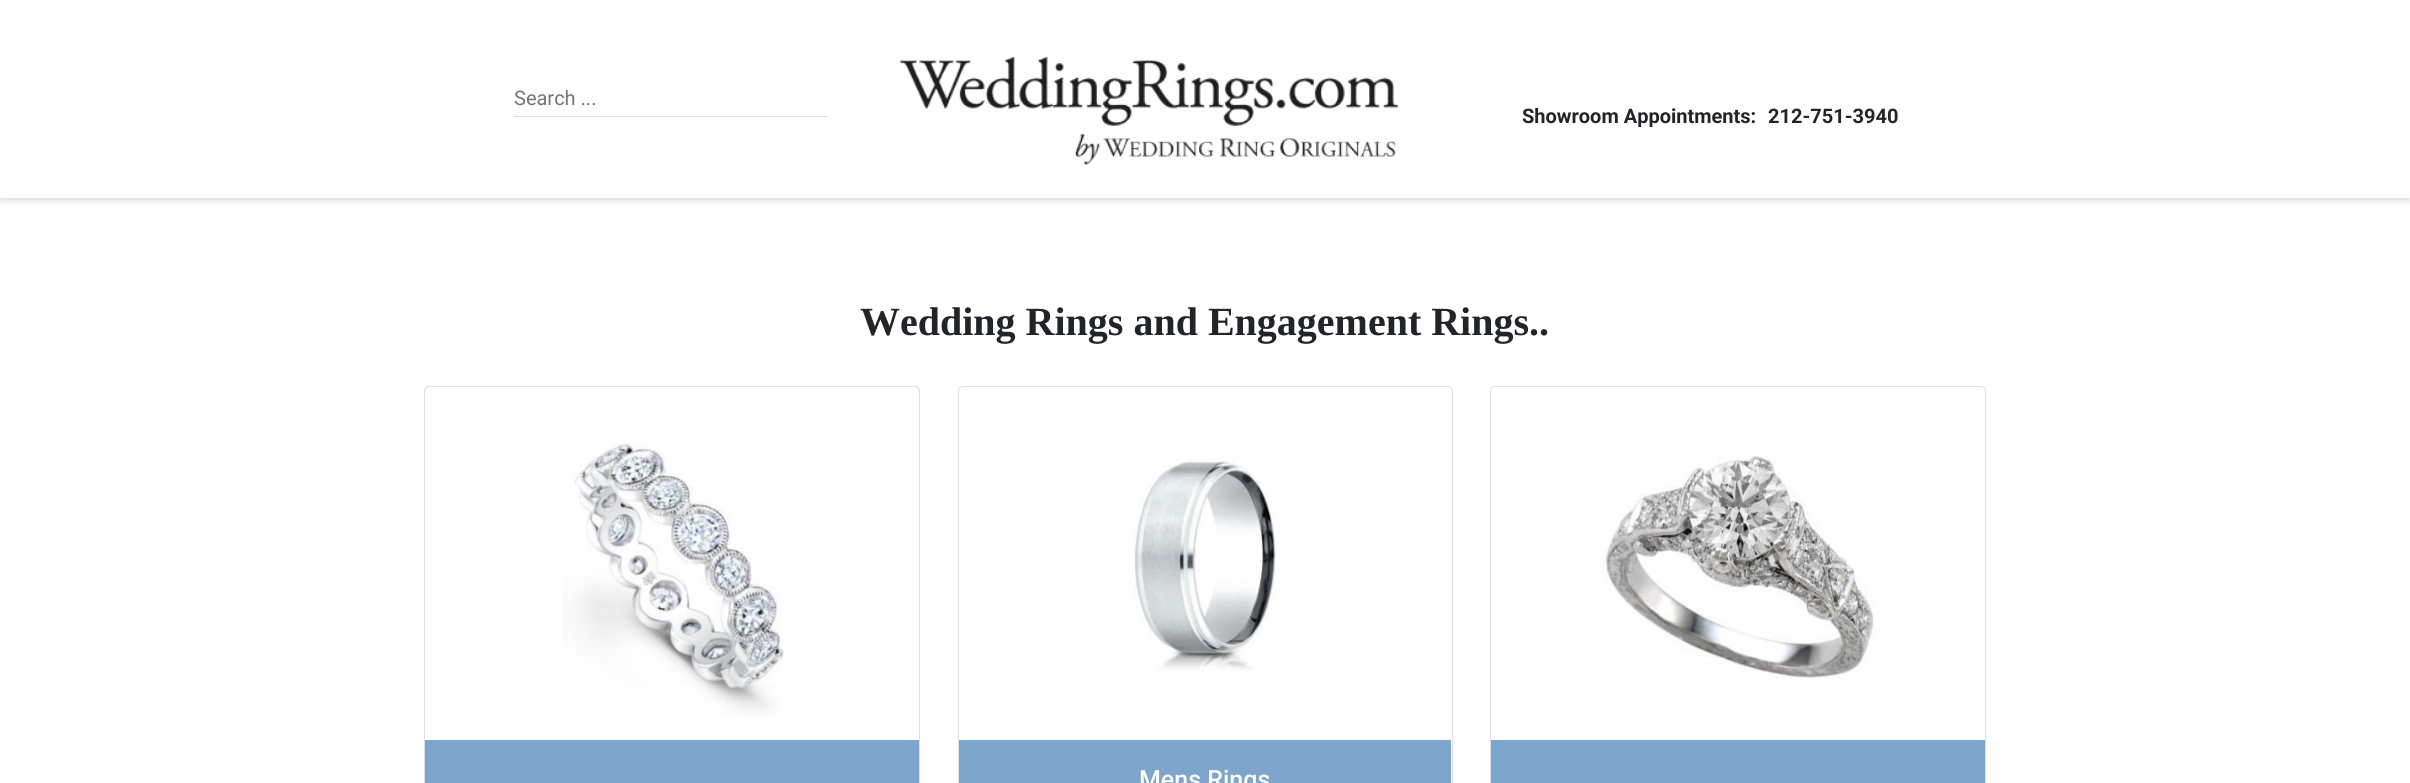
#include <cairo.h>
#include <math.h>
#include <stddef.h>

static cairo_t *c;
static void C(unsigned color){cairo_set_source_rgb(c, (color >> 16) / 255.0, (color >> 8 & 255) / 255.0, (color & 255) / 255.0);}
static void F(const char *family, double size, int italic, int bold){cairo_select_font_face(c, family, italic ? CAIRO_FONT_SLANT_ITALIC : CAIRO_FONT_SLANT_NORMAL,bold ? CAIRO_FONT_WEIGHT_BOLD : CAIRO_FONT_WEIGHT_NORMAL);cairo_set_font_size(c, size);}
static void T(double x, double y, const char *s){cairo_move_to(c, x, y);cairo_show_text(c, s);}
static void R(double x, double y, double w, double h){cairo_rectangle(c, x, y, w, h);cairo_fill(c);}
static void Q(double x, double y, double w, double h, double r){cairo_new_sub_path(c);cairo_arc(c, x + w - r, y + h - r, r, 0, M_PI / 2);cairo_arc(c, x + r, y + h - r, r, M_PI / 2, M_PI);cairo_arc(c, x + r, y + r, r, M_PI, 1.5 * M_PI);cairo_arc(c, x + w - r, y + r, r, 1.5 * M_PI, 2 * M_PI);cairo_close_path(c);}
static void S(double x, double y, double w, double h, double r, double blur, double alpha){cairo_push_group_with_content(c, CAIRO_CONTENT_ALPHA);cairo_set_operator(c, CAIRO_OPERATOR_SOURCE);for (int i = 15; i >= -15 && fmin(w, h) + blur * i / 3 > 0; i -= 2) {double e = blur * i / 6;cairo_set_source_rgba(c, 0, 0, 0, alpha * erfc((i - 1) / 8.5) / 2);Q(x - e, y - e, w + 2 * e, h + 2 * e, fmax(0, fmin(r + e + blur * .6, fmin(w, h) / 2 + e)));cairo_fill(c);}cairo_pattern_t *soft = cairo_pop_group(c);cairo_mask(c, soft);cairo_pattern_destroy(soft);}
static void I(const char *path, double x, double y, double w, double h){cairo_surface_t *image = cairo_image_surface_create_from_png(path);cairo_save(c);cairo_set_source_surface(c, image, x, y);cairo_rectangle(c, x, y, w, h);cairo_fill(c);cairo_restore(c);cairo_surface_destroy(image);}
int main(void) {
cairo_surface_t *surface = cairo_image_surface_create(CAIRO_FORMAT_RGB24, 2410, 783);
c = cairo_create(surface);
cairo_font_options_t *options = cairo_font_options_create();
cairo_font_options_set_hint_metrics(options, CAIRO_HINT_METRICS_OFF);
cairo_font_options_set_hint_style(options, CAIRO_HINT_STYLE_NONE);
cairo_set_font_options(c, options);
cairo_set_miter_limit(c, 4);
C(0xffffff);
cairo_paint(c);
cairo_save(c);
cairo_set_fill_rule(c,CAIRO_FILL_RULE_EVEN_ODD);
cairo_new_path(c);
cairo_move_to(c,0,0);
cairo_line_to(c,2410,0);
cairo_line_to(c,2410,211);
cairo_line_to(c,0,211);
cairo_close_path(c);
cairo_move_to(c,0,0);
cairo_line_to(c,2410,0);
cairo_line_to(c,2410,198);
cairo_line_to(c,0,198);
cairo_close_path(c);
cairo_clip(c);
C(0xdedede);
S(0,4,2410,197,0,3,1);
cairo_restore(c);
C(0xdedede);
R(514,116,314,1);
F("Roboto",20,0,0);
C(0x757575);
T(514,105,"Search ...");
I("1.png",899,56,500,110);
F("Roboto",20,0,1);
C(0x212529);
T(1522,123,"Showroom Appointments:");
T(1768,123,"212-751-3940");
F("Liberation Serif",40,0,1);
T(860,335,"Wedding Rings and Engagement Rings..");
Q(424.5,386.5,495,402,4.5);
C(0xdfdfdf);
cairo_set_line_width(c,1);
cairo_stroke(c);
I("2.png",562,443,222,273);
C(0x7ea5cc);
R(425,740,494,43);
Q(958.5,386.5,494,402,4.5);
C(0xdfdfdf);
cairo_stroke(c);
I("3.png",1134,459,142,212);
C(0x7ea5cc);
R(959,740,492,43);
F("Roboto Medium",25,0,0);
C(0xffffff);
T(1139,788,"Mens Rings");
Q(1490.5,386.5,495,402,4.5);
C(0xdfdfdf);
cairo_stroke(c);
I("4.png",1604,456,271,223);
C(0x7ea5cc);
R(1491,740,494,43);
cairo_surface_write_to_png(surface, "o.png");
cairo_font_options_destroy(options);
cairo_destroy(c);
cairo_surface_destroy(surface);
return 0;
}
